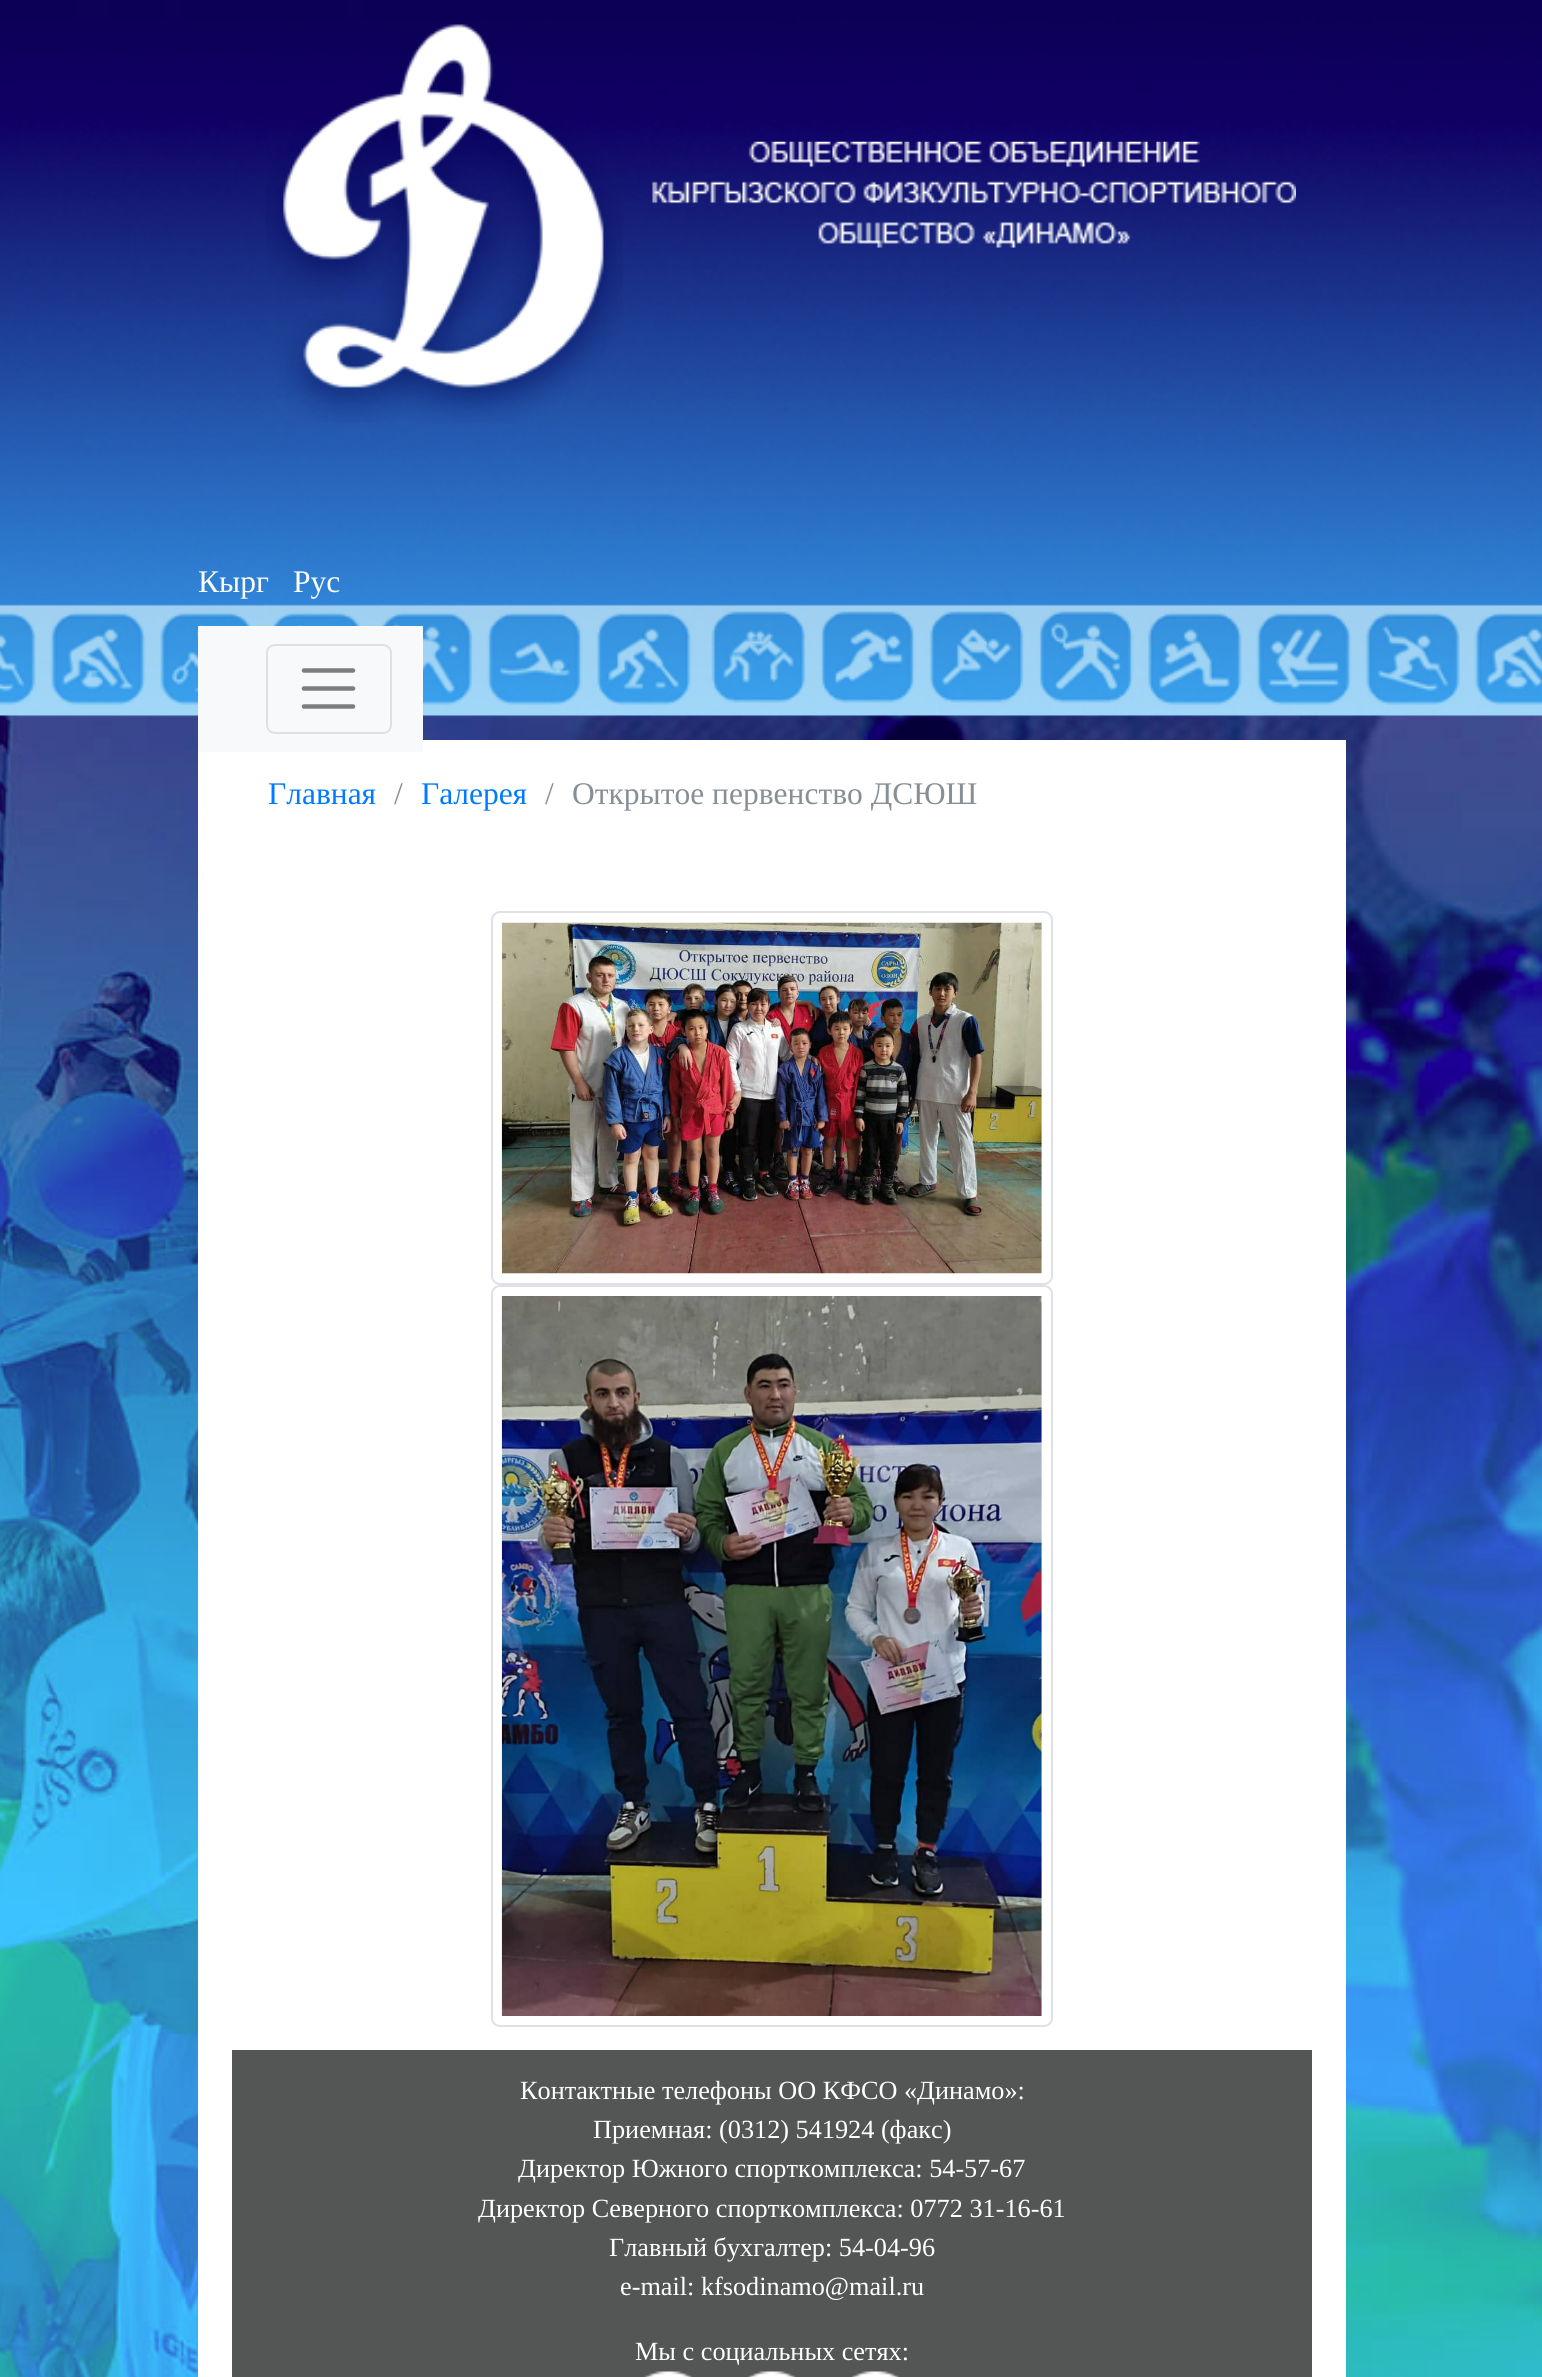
#include <cairo.h>
#include <math.h>
#include <stddef.h>

static cairo_t *c;
static void C(unsigned color){cairo_set_source_rgb(c, (color >> 16) / 255.0, (color >> 8 & 255) / 255.0, (color & 255) / 255.0);}
static void F(const char *family, double size, int italic, int bold){cairo_select_font_face(c, family, italic ? CAIRO_FONT_SLANT_ITALIC : CAIRO_FONT_SLANT_NORMAL,bold ? CAIRO_FONT_WEIGHT_BOLD : CAIRO_FONT_WEIGHT_NORMAL);cairo_set_font_size(c, size);}
static void T(double x, double y, const char *s){cairo_move_to(c, x, y);cairo_show_text(c, s);}
static void R(double x, double y, double w, double h){cairo_rectangle(c, x, y, w, h);cairo_fill(c);}
static void Q(double x, double y, double w, double h, double r){cairo_new_sub_path(c);cairo_arc(c, x + w - r, y + h - r, r, 0, M_PI / 2);cairo_arc(c, x + r, y + h - r, r, M_PI / 2, M_PI);cairo_arc(c, x + r, y + r, r, M_PI, 1.5 * M_PI);cairo_arc(c, x + w - r, y + r, r, 1.5 * M_PI, 2 * M_PI);cairo_close_path(c);}
static void I(const char *path, double x, double y, double w, double h){cairo_surface_t *image = cairo_image_surface_create_from_png(path);cairo_save(c);cairo_set_source_surface(c, image, x, y);cairo_rectangle(c, x, y, w, h);cairo_fill(c);cairo_restore(c);cairo_surface_destroy(image);}
int main(void) {
cairo_surface_t *surface = cairo_image_surface_create(CAIRO_FORMAT_RGB24, 1542, 2377);
c = cairo_create(surface);
cairo_font_options_t *options = cairo_font_options_create();
cairo_font_options_set_hint_metrics(options, CAIRO_HINT_METRICS_OFF);
cairo_font_options_set_hint_style(options, CAIRO_HINT_STYLE_NONE);
cairo_set_font_options(c, options);
cairo_set_miter_limit(c, 4);
C(0xffffff);
cairo_paint(c);
I("1.png",0,0,1542,2377);
I("2.png",266,24,357,399);
I("3.png",652,141,644,107);
F("Liberation Serif",31.5,0,0);
C(0xffffff);
T(198,592,"Кырг");
T(293,592,"Рус");
R(198,740,1148,1637);
C(0xf8f9fa);
R(198,626,225,126);
Q(267,645,124,88,8);
C(0xdfe0e1);
cairo_stroke(c);
cairo_new_path(c);
cairo_move_to(c,304,670.5);
cairo_line_to(c,353,670.5);
cairo_move_to(c,304,688.5);
cairo_line_to(c,353,688.5);
cairo_move_to(c,304,706.5);
cairo_line_to(c,353,706.5);
C(0x7c7d7d);
cairo_set_line_width(c,4.5);
cairo_set_line_cap(c,CAIRO_LINE_CAP_ROUND);
cairo_stroke(c);
C(0x007bff);
T(268,804,"Главная");
C(0x868e96);
T(394,804,"/");
C(0x007bff);
T(421,804,"Галерея");
C(0x868e96);
T(545,804,"/");
T(572,804,"Открытое первенство ДСЮШ");
Q(492,912,560,372,8);
C(0xdee2e6);
cairo_set_line_width(c,2);
cairo_set_line_cap(c,CAIRO_LINE_CAP_BUTT);
cairo_stroke(c);
I("4.png",501,922,541,352);
Q(492,1286,560,740,8);
cairo_stroke(c);
I("5.png",501,1296,541,720);
C(0x545555);
R(232,2050,1080,327);
F("Liberation Serif",26.25,0,0);
C(0xffffff);
T(520,2099,"Контактные телефоны ОО КФСО «Динамо»:");
T(593,2138,"Приемная: (0312) 541924 (факс)");
T(518,2177,"Директор Южного спорткомплекса: 54-57-67");
T(478,2217,"Директор Северного спорткомплекса: 0772 31-16-61");
T(609,2256,"Главный бухгалтер: 54-04-96");
T(620,2295,"e-mail: kfsodinamo@mail.ru");
T(635,2360,"Мы с социальных сетях:");
I("6.png",643,2371,50,6);
I("7.png",747,2371,50,6);
I("8.png",851,2371,49,6);
cairo_surface_write_to_png(surface, "o.png");
cairo_font_options_destroy(options);
cairo_destroy(c);
cairo_surface_destroy(surface);
return 0;
}
